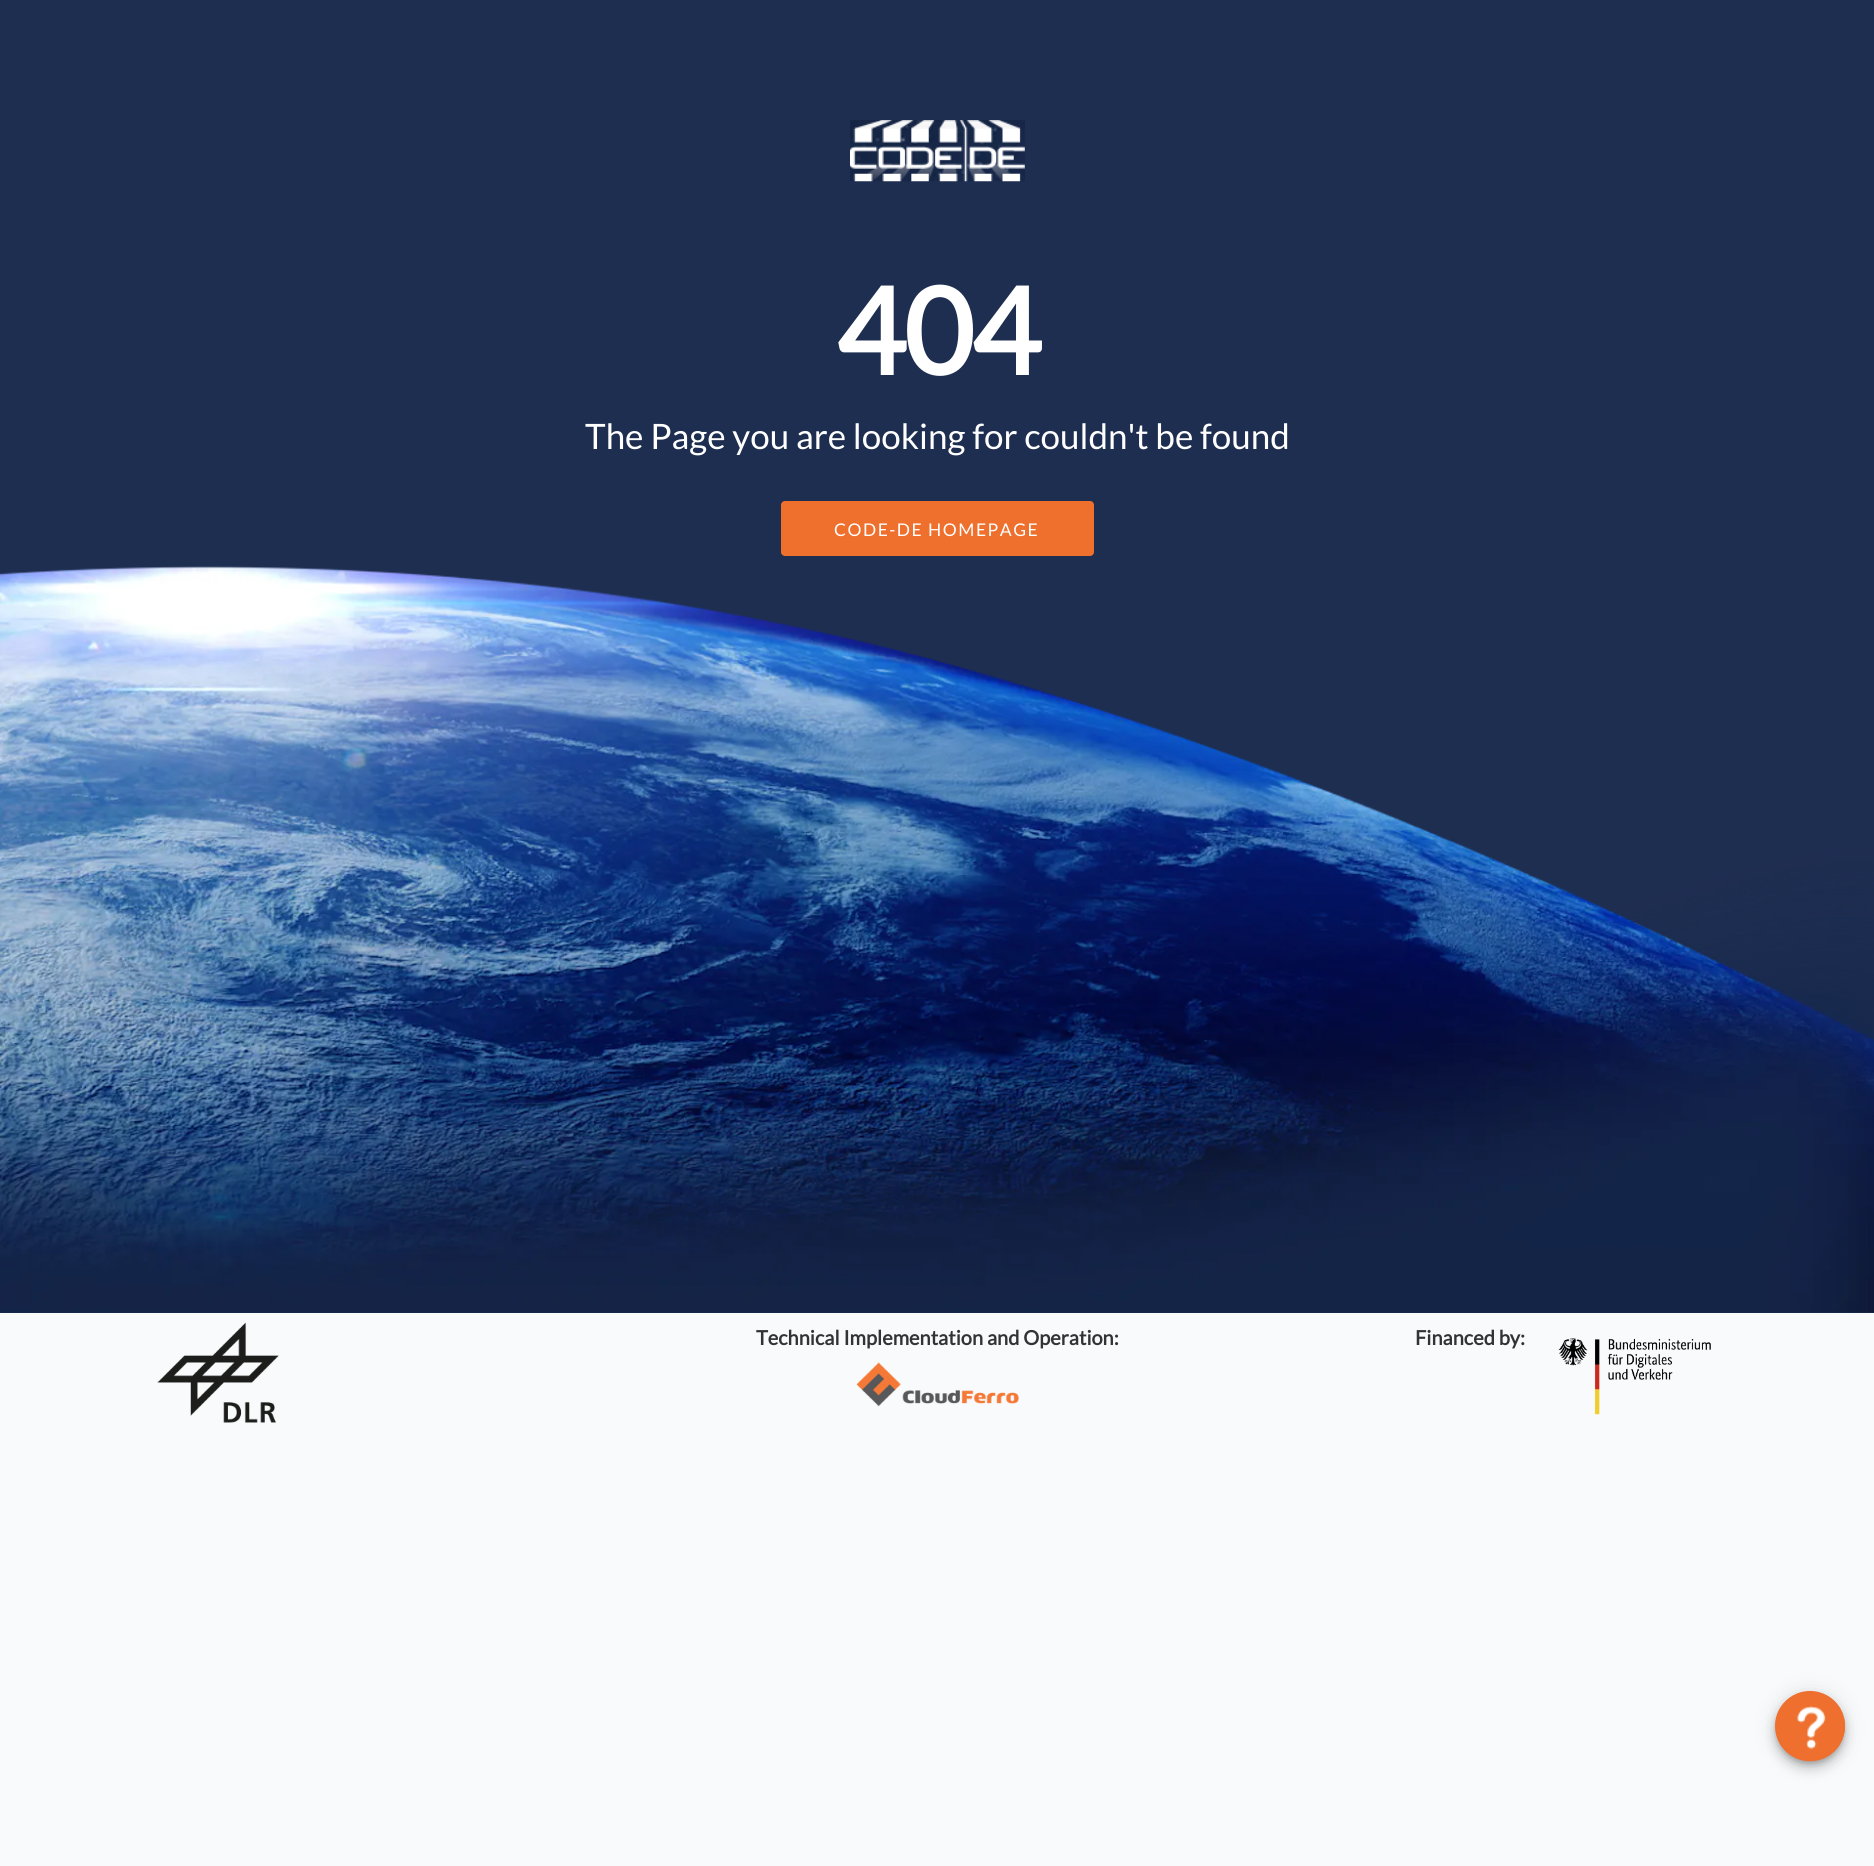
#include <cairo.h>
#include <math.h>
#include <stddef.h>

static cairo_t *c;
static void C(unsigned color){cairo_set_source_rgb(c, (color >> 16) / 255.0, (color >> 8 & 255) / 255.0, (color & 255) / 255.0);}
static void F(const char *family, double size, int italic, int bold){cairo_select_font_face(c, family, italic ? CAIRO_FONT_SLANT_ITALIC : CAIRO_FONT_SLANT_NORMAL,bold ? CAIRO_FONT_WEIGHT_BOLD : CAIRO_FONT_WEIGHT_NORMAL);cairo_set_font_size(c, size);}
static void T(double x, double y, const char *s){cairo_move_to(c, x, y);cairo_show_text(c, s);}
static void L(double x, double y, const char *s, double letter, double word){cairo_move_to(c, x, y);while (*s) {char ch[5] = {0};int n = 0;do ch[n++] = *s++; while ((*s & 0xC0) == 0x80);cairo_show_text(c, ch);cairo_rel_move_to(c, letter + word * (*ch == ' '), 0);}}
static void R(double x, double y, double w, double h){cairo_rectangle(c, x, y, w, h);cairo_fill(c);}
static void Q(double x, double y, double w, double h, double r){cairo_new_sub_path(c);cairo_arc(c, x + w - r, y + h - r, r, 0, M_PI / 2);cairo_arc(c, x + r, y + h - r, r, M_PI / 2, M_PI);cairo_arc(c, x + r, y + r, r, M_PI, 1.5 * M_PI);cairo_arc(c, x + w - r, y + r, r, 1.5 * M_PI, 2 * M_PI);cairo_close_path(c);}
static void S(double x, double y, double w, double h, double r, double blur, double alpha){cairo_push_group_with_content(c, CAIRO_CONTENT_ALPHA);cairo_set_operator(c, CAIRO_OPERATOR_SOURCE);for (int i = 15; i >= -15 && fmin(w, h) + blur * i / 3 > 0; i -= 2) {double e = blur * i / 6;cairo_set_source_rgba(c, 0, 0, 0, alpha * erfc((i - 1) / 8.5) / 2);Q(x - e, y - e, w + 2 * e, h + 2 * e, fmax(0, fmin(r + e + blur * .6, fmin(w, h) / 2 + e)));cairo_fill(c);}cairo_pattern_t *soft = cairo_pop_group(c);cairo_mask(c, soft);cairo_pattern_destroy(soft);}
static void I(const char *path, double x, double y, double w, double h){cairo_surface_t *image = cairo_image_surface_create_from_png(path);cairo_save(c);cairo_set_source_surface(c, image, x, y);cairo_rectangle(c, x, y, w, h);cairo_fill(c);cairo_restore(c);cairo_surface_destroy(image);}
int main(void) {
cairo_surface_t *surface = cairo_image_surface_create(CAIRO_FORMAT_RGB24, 1874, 1866);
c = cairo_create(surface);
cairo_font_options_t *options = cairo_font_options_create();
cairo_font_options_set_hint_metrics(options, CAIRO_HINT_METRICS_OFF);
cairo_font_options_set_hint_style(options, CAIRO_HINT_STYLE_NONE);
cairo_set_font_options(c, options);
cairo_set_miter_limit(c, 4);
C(0xf8fafb);
cairo_paint(c);
C(0x1e2e51);
R(0,0,1874,1313);
I("1.png",850,120,175,62);
F("Lato",120,0,1);
C(0xffffff);
L(836,375,"404",-2,0);
F("Lato",35,0,0);
T(585,449,"The Page you are looking for couldn't be found");
C(0xef6f2d);
Q(781,501,313,55,4);
cairo_fill(c);
F("Lato",17.5,0,0);
C(0xffffff);
L(834,536,"CODE-DE HOMEPAGE",1.5,0);
I("2.png",0,566,1874,747);
I("3.png",157,1322,122,101);
F("Lato",20,0,1);
C(0x333333);
T(756,1345,"Technical Implementation and Operation:");
I("4.png",856,1362,163,45);
T(1415,1345,"Financed by:");
I("5.png",1558,1338,153,77);
C(0x000000);
S(1775,1693,70,70,35,11,.12);
S(1775,1699,70,70,35,6,.14);
S(1776,1696,68,68,34,3,.2);
C(0xef6f2d);
cairo_arc(c,1810,1726,35,0,2 * M_PI);
cairo_fill(c);
I("6.png",1776,1691,69,71);
cairo_surface_write_to_png(surface, "o.png");
cairo_font_options_destroy(options);
cairo_destroy(c);
cairo_surface_destroy(surface);
return 0;
}
